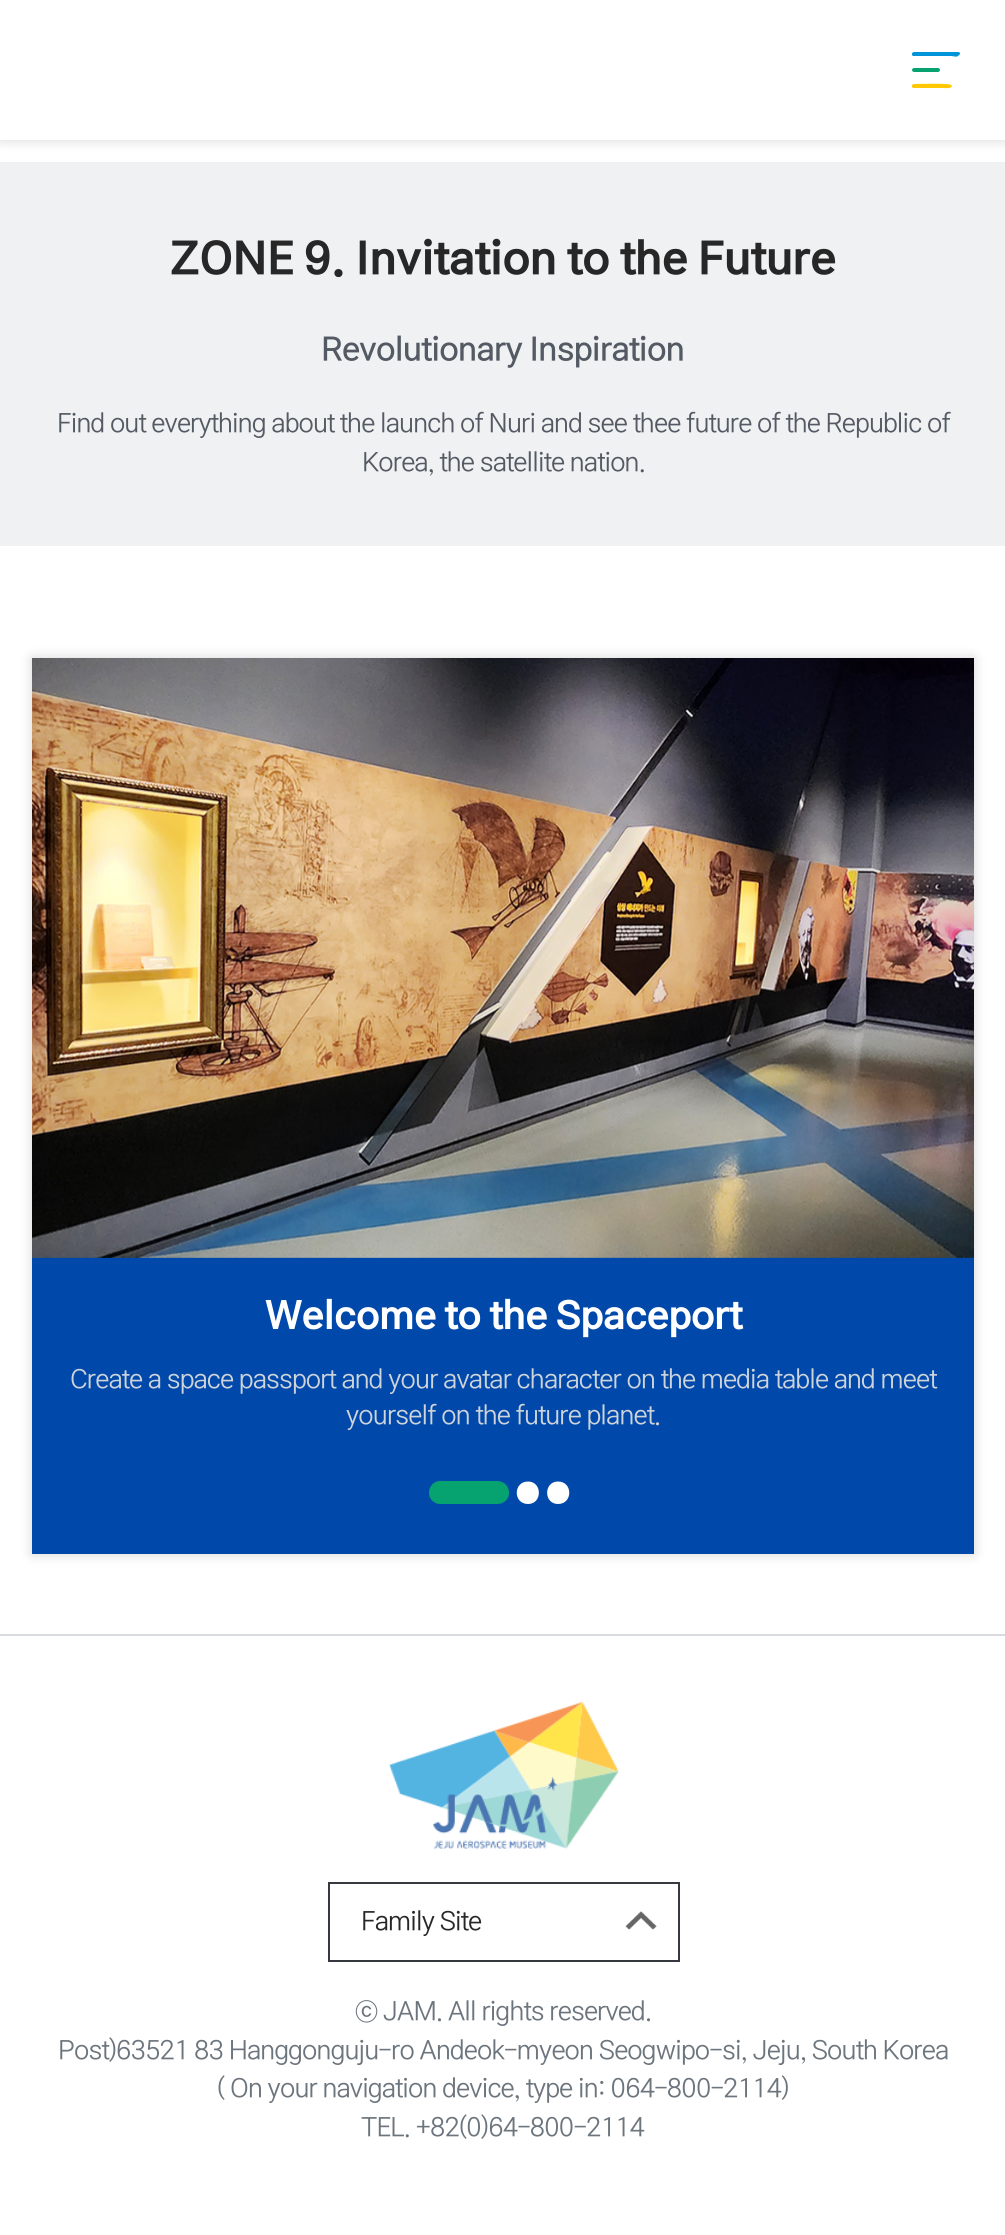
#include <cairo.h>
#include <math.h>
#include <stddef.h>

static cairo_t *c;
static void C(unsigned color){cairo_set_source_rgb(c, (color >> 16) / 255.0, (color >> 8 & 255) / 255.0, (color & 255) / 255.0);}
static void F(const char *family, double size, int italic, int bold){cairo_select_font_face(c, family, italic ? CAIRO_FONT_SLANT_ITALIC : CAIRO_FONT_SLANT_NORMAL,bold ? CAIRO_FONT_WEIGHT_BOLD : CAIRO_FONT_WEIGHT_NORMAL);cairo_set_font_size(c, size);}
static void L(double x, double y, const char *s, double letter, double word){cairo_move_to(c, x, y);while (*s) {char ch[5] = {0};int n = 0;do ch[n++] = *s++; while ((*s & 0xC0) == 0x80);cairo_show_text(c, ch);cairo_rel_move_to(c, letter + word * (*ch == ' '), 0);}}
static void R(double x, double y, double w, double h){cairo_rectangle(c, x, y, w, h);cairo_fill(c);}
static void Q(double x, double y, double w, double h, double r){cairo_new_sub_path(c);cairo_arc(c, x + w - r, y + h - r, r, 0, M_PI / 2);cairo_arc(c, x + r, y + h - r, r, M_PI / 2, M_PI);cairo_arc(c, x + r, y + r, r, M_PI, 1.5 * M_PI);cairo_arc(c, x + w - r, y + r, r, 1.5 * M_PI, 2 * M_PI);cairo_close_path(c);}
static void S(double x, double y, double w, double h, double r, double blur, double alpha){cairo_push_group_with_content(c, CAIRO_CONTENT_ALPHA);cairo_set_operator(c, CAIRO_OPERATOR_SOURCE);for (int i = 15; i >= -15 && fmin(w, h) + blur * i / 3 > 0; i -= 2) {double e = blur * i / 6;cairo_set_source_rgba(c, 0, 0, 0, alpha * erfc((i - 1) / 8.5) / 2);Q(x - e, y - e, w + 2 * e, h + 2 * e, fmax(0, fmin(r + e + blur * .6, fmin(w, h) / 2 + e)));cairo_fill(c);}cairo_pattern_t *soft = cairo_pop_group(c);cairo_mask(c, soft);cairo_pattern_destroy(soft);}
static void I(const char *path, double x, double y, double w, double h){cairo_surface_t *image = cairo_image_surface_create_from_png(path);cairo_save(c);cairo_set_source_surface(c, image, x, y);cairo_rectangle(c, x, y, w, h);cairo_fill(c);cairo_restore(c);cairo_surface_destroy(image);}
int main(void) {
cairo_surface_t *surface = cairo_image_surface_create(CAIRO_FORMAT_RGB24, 1005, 2235);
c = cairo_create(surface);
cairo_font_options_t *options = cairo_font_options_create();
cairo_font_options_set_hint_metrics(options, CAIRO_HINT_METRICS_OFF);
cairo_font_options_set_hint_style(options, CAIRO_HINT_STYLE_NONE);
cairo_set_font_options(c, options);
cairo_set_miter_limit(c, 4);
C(0xffffff);
cairo_paint(c);
C(0x000000);
S(0,0,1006,140,0,6.5,.16);
C(0xffffff);
R(0,0,1005,140);
C(0x0094db);
cairo_new_path(c);
cairo_move_to(c,914,52);
cairo_line_to(c,958,52);
cairo_curve_to(c,960,52,961,54,959,55);
cairo_curve_to(c,957,58,954,56,951,56);
cairo_line_to(c,913,56);
cairo_curve_to(c,911,55,912,52,914,52);
cairo_close_path(c);
cairo_fill(c);
C(0x06a270);
cairo_new_path(c);
cairo_move_to(c,914,68);
cairo_line_to(c,938,68);
cairo_curve_to(c,939,68,940,69,940,70);
cairo_curve_to(c,940,71,939,72,938,72);
cairo_line_to(c,914,72);
cairo_curve_to(c,913,72,912,71,912,70);
cairo_curve_to(c,912,69,913,68,914,68);
cairo_close_path(c);
cairo_fill(c);
C(0xffc800);
cairo_new_path(c);
cairo_move_to(c,914,84);
cairo_curve_to(c,918,84,950,83,951,85);
cairo_line_to(c,952,86);
cairo_curve_to(c,951,89,945,88,944,88);
cairo_line_to(c,913,88);
cairo_curve_to(c,911,87,912,84,914,84);
cairo_close_path(c);
cairo_fill(c);
C(0xeff1f3);
R(0,162,1005,384);
F("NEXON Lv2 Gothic",44.75,0,1);
C(0x272727);
L(170,272,"ZONE 9. Invitation to the Future",-.8,0);
F("NEXON Lv2 Gothic Medium",32,0,0);
C(0x545a63);
L(321,359,"Revolutionary Inspiration",-.8,0);
F("NEXON Lv2 Gothic",25.6,0,0);
L(57,431,"Find out everything about the launch of Nuri and see thee future of the Republic of",-.8,0);
L(362,470,"Korea, the satellite nation.",-.8,0);
C(0x000000);
S(32,658,942,896,0,6.5,.16);
C(0x0049ab);
R(32,1257,942,297);
I("1.png",32,658,942,600);
F("NEXON Lv2 Gothic",38.4,0,1);
C(0xffffff);
L(265,1327,"Welcome to the Spaceport",-.8,0);
F("NEXON Lv2 Gothic",25.6,0,0);
C(0xced4da);
L(70,1387,"Create a space passport and your avatar character on the media table and meet",-.8,0);
L(346,1423,"yourself on the future planet.",-.8,0);
C(0x06a270);
cairo_new_path(c);
cairo_move_to(c,440,1481);
cairo_line_to(c,497,1481);
cairo_curve_to(c,504,1481,509,1486,509,1493);
cairo_curve_to(c,509,1499,504,1504,497,1504);
cairo_line_to(c,440,1504);
cairo_curve_to(c,434,1504,429,1499,429,1493);
cairo_curve_to(c,429,1486,434,1481,440,1481);
cairo_close_path(c);
cairo_fill(c);
C(0xffffff);
cairo_new_path(c);
cairo_move_to(c,528,1481.5);
cairo_curve_to(c,542.5,1481.5,542.5,1504,528,1504);
cairo_curve_to(c,513,1504,513,1481.5,528,1481.5);
cairo_close_path(c);
cairo_move_to(c,558,1481.5);
cairo_curve_to(c,573,1481.5,573,1504,558,1504);
cairo_curve_to(c,543.5,1504,543.5,1481.5,558,1481.5);
cairo_close_path(c);
cairo_fill(c);
C(0xd8dbdf);
R(0,1634,1005,2);
I("2.png",389,1701,230,148);
cairo_rectangle(c,329,1883,350,78);
C(0x363a40);
cairo_stroke(c);
C(0x272727);
L(361,1929,"Family Site",-.8,0);
I("3.png",625,1911,32,19);
C(0x6c757d);
L(355,2019,"ⓒ JAM. All rights reserved.",-.8,0);
L(58,2058,"Post)63521 83 Hanggonguju-ro Andeok-myeon Seogwipo-si, Jeju, South Korea",-.8,0);
L(217,2096,"( On your navigation device, type in: 064-800-2114)",-.8,0);
L(361,2135,"TEL. +82(0)64-800-2114",-.8,0);
cairo_surface_write_to_png(surface, "o.png");
cairo_font_options_destroy(options);
cairo_destroy(c);
cairo_surface_destroy(surface);
return 0;
}
